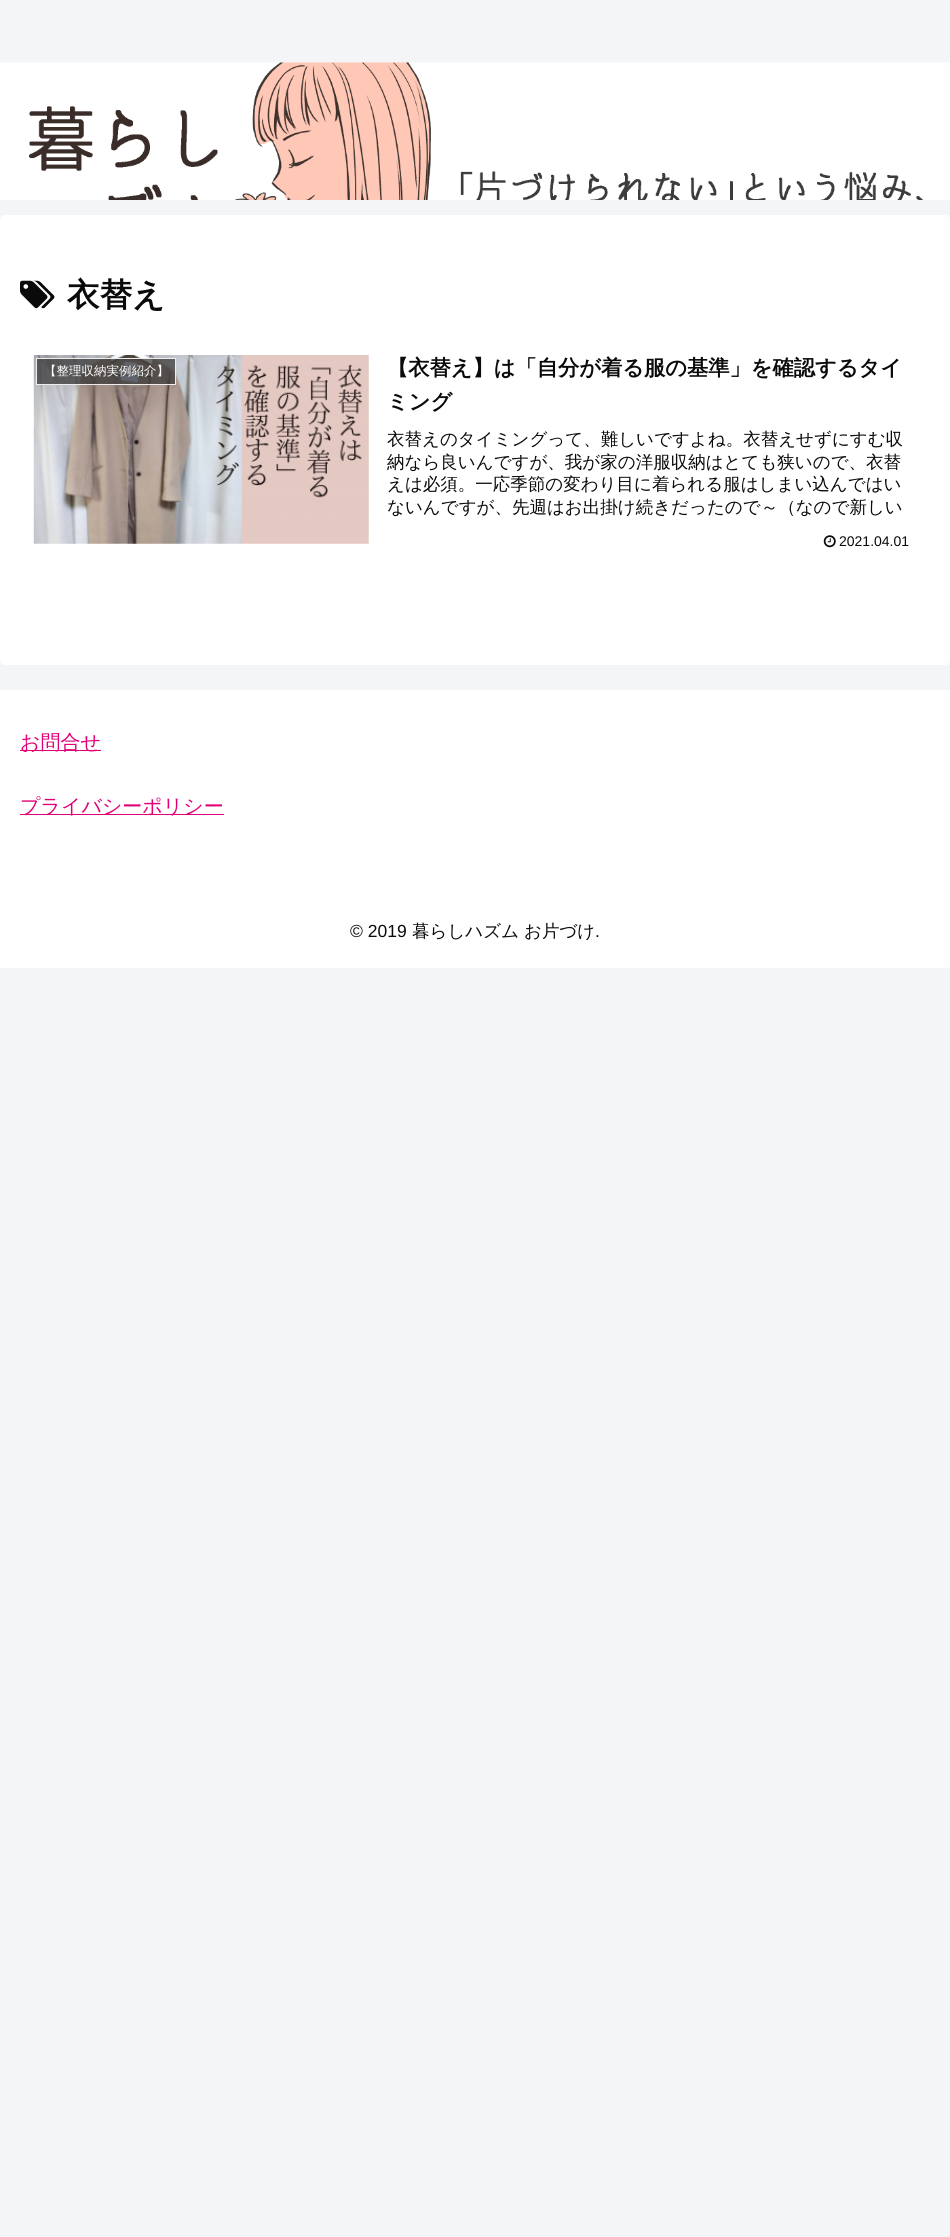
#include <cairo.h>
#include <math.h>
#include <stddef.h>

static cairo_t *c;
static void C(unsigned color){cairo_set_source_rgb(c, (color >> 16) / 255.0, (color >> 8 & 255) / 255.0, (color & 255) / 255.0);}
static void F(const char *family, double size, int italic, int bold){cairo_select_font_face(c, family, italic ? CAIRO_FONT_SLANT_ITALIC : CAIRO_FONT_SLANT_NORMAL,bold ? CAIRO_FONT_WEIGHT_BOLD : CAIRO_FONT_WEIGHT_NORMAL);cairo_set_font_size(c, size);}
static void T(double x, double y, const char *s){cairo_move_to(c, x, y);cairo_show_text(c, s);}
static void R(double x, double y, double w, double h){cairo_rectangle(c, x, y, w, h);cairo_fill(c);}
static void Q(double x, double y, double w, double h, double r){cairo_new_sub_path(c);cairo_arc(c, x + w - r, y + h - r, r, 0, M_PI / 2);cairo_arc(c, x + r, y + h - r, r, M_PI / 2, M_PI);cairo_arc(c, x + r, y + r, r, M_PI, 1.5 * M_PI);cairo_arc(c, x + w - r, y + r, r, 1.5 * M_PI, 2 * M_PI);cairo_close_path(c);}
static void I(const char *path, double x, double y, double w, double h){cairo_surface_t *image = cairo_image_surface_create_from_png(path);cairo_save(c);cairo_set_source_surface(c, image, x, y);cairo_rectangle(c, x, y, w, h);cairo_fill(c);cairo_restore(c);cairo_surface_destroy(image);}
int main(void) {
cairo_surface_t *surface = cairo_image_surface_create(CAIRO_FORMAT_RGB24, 950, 2237);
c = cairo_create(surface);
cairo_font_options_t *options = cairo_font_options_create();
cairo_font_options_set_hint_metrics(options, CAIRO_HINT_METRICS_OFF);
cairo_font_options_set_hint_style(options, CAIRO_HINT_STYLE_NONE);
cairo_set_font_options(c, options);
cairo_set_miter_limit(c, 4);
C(0xf4f5f7);
cairo_paint(c);
I("1.png",0,62,950,138);
C(0xffffff);
Q(0,215,950,450,5);
cairo_fill(c);
I("2.png",20,280,35,29);
F("WenQuanYi Zen Hei",32.5,0,1);
C(0x0a0a0a);
T(67,306,"衣替え");
I("3.png",33,355,336,189);
cairo_set_source_rgba(c,0.2,0.2,0.2,0.7);
cairo_rectangle(c,36.5,358.5,139,26);
cairo_fill_preserve(c);
C(0xeeeeee);
cairo_set_line_width(c,1);
cairo_stroke(c);
F("WenQuanYi Zen Hei Medium",12.5,0,0);
C(0xffffff);
T(44,375,"【整理収納実例紹介】");
F("WenQuanYi Zen Hei",21.25,0,1);
C(0x0a0a0a);
T(387,375,"【衣替え】は「自分が着る服の基準」を確認するタイ");
T(387,409,"ミング");
F("WenQuanYi Zen Hei Medium",17.5,0,0);
T(387,445,"衣替えのタイミングって、難しいですよね。衣替えせずにすむ収");
T(387,468,"納なら良いんですが、我が家の洋服収納はとても狭いので、衣替");
T(387,490,"えは必須。一応季節の変わり目に着られる服はしまい込んではい");
T(387,513,"ないんですが、先週はお出掛け続きだったので～（なので新しい");
I("4.png",823,535,13,13);
F("Liberation Sans",14,0,0);
T(839,546,"2021.04.01");
C(0xffffff);
R(0,690,950,278);
C(0xe20079);
R(20,750,81,1);
F("WenQuanYi Zen Hei Medium",20,0,0);
T(20,749,"お問合せ");
R(20,814,204,1);
T(20,813,"プライバシーポリシー");
F("Liberation Sans",17.5,0,0);
C(0x0a0a0a);
T(350,937,"© 2019");
F("WenQuanYi Zen Hei Medium",17.5,0,0);
T(412,937,"暮らしハズム");
T(524,937,"お片づけ");
F("Liberation Sans",17.5,0,0);
T(595,937,".");
cairo_surface_write_to_png(surface, "o.png");
cairo_font_options_destroy(options);
cairo_destroy(c);
cairo_surface_destroy(surface);
return 0;
}
